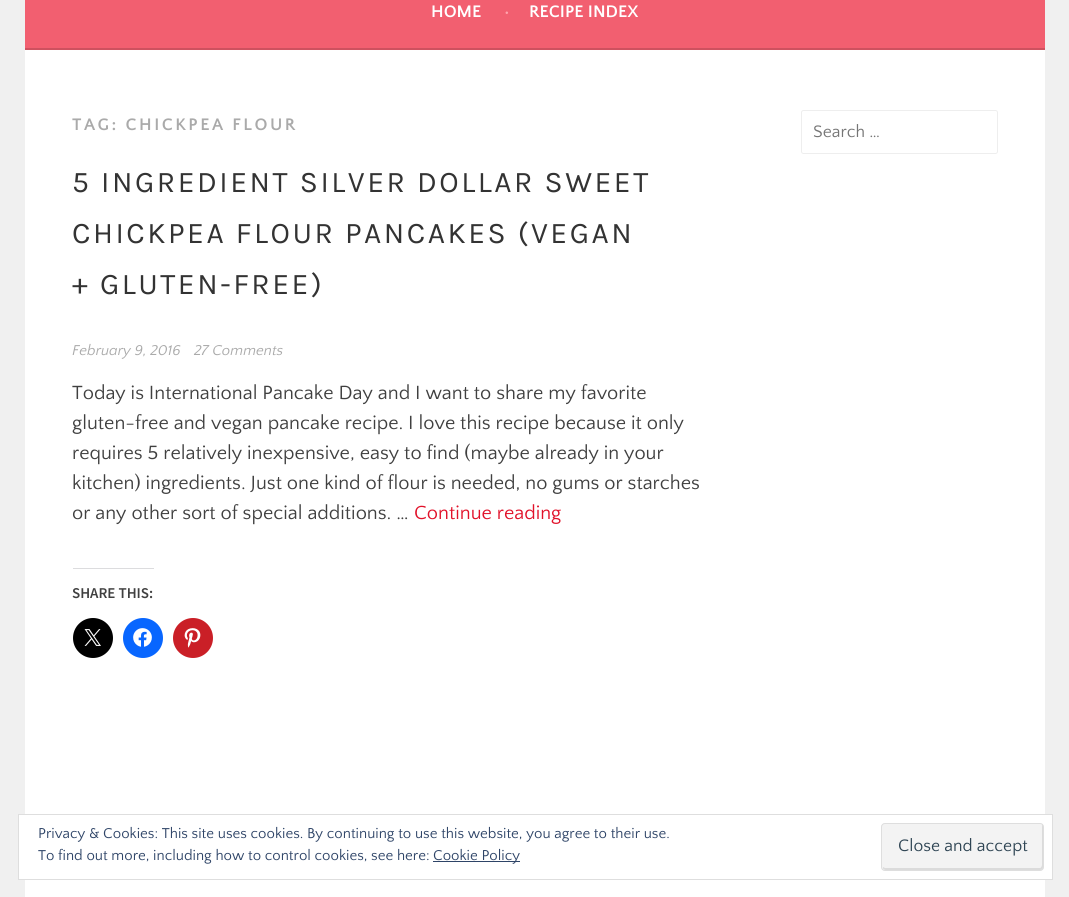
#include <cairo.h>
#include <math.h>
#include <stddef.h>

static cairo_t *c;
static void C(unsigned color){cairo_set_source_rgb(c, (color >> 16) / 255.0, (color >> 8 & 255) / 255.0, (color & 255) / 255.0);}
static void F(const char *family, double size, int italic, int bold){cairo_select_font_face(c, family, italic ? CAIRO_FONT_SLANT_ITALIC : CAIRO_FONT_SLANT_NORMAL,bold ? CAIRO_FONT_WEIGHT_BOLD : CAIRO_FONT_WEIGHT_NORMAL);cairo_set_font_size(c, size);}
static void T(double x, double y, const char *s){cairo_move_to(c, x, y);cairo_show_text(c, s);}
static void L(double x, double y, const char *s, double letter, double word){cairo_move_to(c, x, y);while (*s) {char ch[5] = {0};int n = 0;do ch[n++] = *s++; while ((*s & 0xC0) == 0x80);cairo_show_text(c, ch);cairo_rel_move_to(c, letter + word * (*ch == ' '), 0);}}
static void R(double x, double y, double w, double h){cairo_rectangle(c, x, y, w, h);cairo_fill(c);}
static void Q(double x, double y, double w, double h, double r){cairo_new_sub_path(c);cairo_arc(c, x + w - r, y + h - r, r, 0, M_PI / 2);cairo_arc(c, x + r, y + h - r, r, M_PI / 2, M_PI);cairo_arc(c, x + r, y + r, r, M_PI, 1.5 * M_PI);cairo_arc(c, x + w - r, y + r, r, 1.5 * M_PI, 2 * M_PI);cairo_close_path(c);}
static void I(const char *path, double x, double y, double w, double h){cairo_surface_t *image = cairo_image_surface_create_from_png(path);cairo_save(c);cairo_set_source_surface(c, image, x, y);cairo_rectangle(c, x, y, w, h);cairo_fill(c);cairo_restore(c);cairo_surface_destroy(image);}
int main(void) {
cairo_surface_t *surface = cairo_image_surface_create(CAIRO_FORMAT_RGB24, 1069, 897);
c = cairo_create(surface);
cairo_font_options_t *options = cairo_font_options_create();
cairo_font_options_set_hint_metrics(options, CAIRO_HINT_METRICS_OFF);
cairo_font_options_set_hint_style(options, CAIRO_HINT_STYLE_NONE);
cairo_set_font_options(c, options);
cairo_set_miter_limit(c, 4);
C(0xf0f0f0);
cairo_paint(c);
C(0xf25f70);
R(25,0,1020,48);
C(0xce515f);
R(25,48,1020,2);
F("Quattrocento Sans",17.5,0,1);
C(0xffffff);
T(431,17,"HOME");
C(0xffa4ad);
T(504,17,"•");
C(0xffffff);
T(529,17,"RECIPE INDEX");
R(25,50,1020,847);
C(0xaaaaaa);
L(72,130,"TAG: CHICKPEA FLOUR",2.5,0);
F("Karla",30,0,0);
C(0x333333);
L(72,192,"5 INGREDIENT SILVER DOLLAR SWEET",2.5,0);
L(72,243,"CHICKPEA FLOUR PANCAKES (VEGAN",2.5,0);
L(72,294,"+ GLUTEN-FREE)",2.5,0);
F("Quattrocento Sans",15,1,0);
C(0xaaaaaa);
T(72,355,"February 9, 2016");
T(194,355,"27 Comments");
F("Quattrocento Sans",20,0,0);
C(0x404040);
T(72,399,"Today is International Pancake Day and I want to share my favorite");
T(72,429,"gluten-free and vegan pancake recipe. I love this recipe because it only");
T(72,459,"requires 5 relatively inexpensive, easy to find (maybe already in your");
T(72,489,"kitchen) ingredients. Just one kind of flour is needed, no gums or starches");
T(72,519,"or any other sort of special additions. …");
C(0xe1122a);
T(414,519,"Continue reading");
C(0xdcdcde);
R(73,568,81,1);
F("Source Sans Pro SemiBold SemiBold",15,0,0);
C(0x404040);
T(72,598,"SHARE THIS:");
C(0x000000);
cairo_new_path(c);
cairo_arc(c,93,638,20,0,2 * M_PI);
cairo_fill(c);
I("1.png",84,629,17,17);
C(0x0866ff);
cairo_arc(c,143,638,20,0,2 * M_PI);
cairo_fill(c);
I("2.png",133,628,19,19);
C(0xca1f27);
cairo_arc(c,193,638,20,0,2 * M_PI);
cairo_fill(c);
I("3.png",184,628,17,20);
Q(801.5,110.5,196,43,2);
C(0xeeeeee);
cairo_set_line_width(c,1);
cairo_stroke(c);
F("Quattrocento Sans",17.5,0,0);
C(0x757575);
T(813,137,"Search …");
C(0xffffff);
cairo_rectangle(c,18.5,814.5,1034,65);
cairo_fill_preserve(c);
C(0xdedede);
cairo_stroke(c);
F("Quattrocento Sans",15,0,0);
C(0x2e4467);
T(38,838,"Privacy & Cookies: This site uses cookies. By continuing to use this website, you agree to their use.");
T(38,860,"To find out more, including how to control cookies, see here:");
R(433,861,87,1);
T(433,860,"Cookie Policy");
C(0xf3f3f3);
Q(881,823,163,48,4);
cairo_fill(c);
C(0xdbdbdb);
cairo_new_path(c);
cairo_move_to(c,883,867);
cairo_line_to(c,883,868);
cairo_curve_to(c,883,869,884,870,886,870);
cairo_line_to(c,1040,870);
cairo_curve_to(c,1042,870,1043,869,1043,868);
cairo_line_to(c,1043,826);
cairo_curve_to(c,1043,826,1043,825,1042,824);
cairo_line_to(c,1042,865);
cairo_curve_to(c,1042,866,1041,868,1040,868);
cairo_line_to(c,885,868);
cairo_close_path(c);
cairo_fill(c);
Q(881.5,823.5,162,47,3.5);
C(0xdedede);
cairo_stroke(c);
F("Quattrocento Sans",17.5,0,0);
C(0x2e4453);
T(898,851,"Close and accept");
cairo_surface_write_to_png(surface, "o.png");
cairo_font_options_destroy(options);
cairo_destroy(c);
cairo_surface_destroy(surface);
return 0;
}
